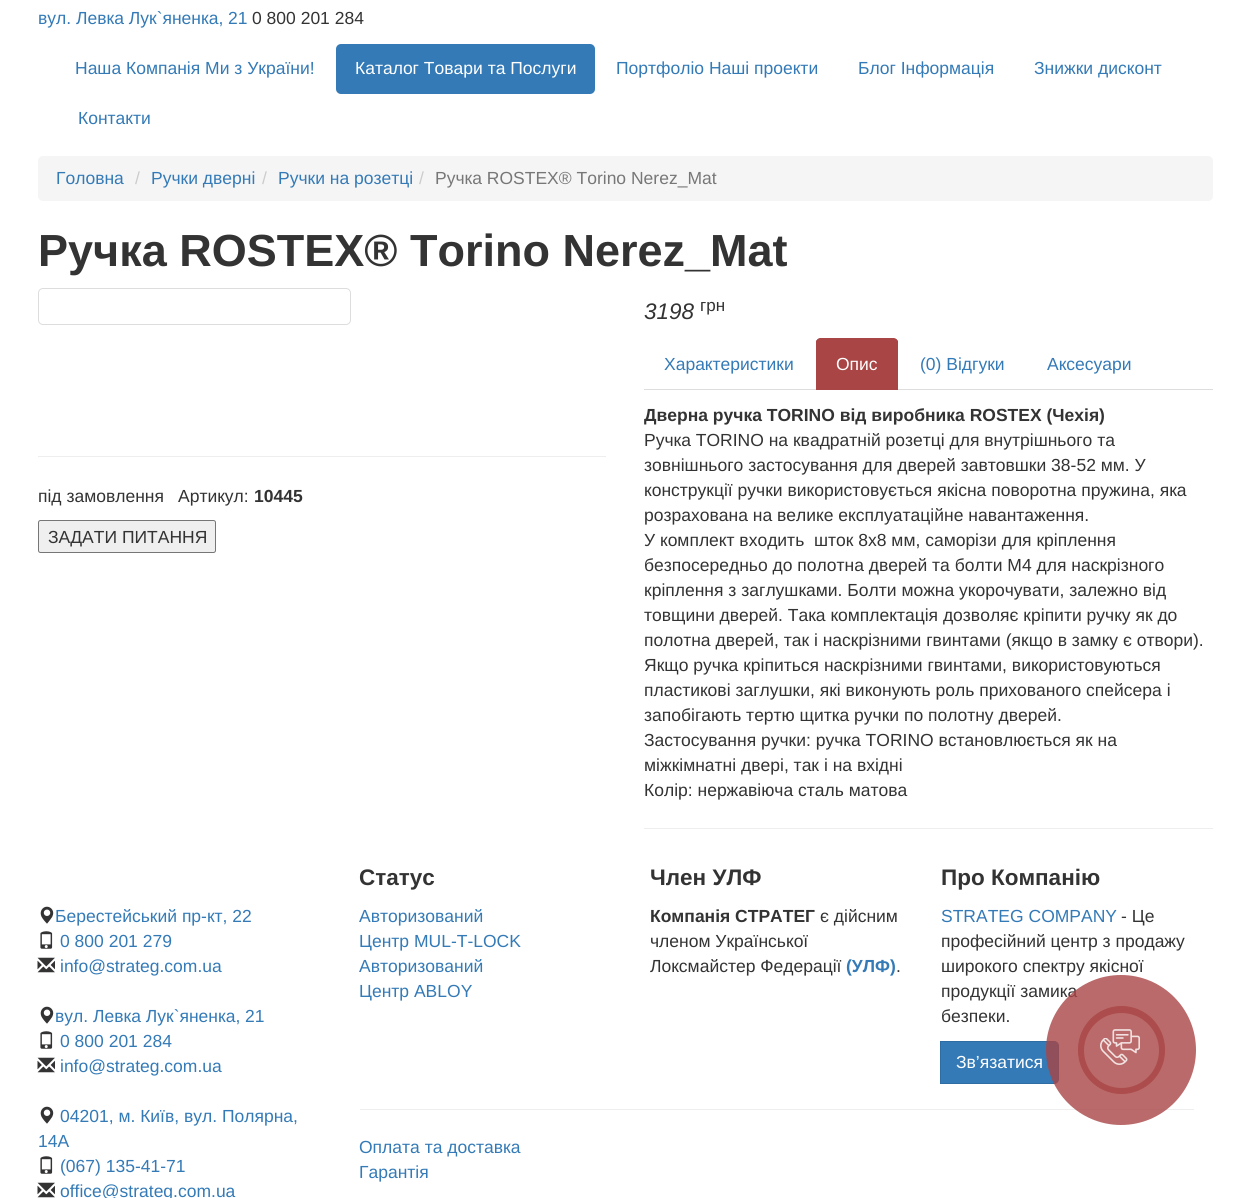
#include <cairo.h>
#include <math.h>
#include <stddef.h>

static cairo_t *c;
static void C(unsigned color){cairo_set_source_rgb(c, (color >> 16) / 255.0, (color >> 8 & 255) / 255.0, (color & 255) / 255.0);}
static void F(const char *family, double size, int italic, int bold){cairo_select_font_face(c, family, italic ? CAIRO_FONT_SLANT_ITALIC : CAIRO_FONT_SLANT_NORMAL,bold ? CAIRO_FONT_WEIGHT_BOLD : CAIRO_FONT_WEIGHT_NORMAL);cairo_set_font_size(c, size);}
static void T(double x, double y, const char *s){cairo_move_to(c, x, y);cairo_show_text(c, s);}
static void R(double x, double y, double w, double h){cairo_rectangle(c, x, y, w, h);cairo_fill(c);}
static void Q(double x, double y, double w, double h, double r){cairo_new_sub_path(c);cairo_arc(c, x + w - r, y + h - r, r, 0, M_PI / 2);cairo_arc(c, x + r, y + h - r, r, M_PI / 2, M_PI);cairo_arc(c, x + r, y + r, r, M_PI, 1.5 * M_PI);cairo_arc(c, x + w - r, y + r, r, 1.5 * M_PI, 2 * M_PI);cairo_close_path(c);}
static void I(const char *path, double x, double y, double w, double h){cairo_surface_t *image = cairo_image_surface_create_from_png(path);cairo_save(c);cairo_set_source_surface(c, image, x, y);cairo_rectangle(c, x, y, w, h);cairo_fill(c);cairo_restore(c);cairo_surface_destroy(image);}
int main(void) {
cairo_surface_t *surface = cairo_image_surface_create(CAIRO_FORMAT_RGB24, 1250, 1198);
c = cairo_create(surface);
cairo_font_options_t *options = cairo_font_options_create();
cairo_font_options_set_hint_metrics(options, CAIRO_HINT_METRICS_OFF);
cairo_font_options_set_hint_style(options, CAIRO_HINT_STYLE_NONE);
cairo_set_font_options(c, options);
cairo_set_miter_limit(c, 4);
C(0xffffff);
cairo_paint(c);
F("Liberation Sans",17.5,0,0);
C(0x337ab7);
T(38,24,"вул. Левка Лук`яненка, 21");
C(0x333333);
T(252,24,"0 800 201 284");
C(0x337ab7);
T(75,74,"Наша Компанія Ми з України!");
Q(336,44,259,50,5);
cairo_fill(c);
C(0xffffff);
T(355,74,"Каталог Товари та Послуги");
C(0x337ab7);
T(616,74,"Портфоліо Наші проекти");
T(858,74,"Блог Інформація");
T(1034,74,"Знижки дисконт");
T(78,124,"Контакти");
C(0xf5f5f5);
Q(38,156,1175,45,5);
cairo_fill(c);
C(0x337ab7);
T(56,184,"Головна");
C(0xcccccc);
T(135,184,"/");
C(0x337ab7);
T(151,184,"Ручки дверні");
C(0xcccccc);
T(262,184,"/");
C(0x337ab7);
T(278,184,"Ручки на розетці");
C(0xcccccc);
T(419,184,"/");
C(0x777777);
T(435,184,"Ручка ROSTEX® Torino Nerez_Mat");
F("Liberation Sans",45,0,1);
C(0x333333);
T(38,266,"Ручка ROSTEX® Torino Nerez_Mat");
Q(38.5,288.5,312,36,4.5);
C(0xdddddd);
cairo_set_line_width(c,1);
cairo_stroke(c);
C(0xeeeeee);
R(38,456,568,1);
F("Liberation Sans",17.5,0,0);
C(0x333333);
T(38,502,"під замовлення");
T(178,502,"Артикул:");
F("Liberation Sans",17.5,0,1);
T(254,502,"10445");
C(0xefefef);
Q(38.5,520.5,177,32,2);
cairo_fill_preserve(c);
C(0x767676);
cairo_stroke(c);
F("Liberation Sans",17.5,0,0);
C(0x333333);
T(48,543,"ЗАДАТИ ПИТАННЯ");
F("Liberation Sans",22.5,1,0);
T(644,319,"3198");
F("Liberation Sans",17,0,0);
T(700,311,"грн");
C(0xdddddd);
R(644,389,569,1);
F("Liberation Sans",17.5,0,0);
C(0x337ab7);
T(664,370,"Характеристики");
C(0xa94545);
cairo_new_path(c);
cairo_move_to(c,821,338);
cairo_line_to(c,893,338);
cairo_curve_to(c,896,338,898,340,898,343);
cairo_line_to(c,898,390);
cairo_line_to(c,816,390);
cairo_line_to(c,816,343);
cairo_curve_to(c,816,340,818,338,821,338);
cairo_close_path(c);
cairo_fill(c);
cairo_new_path(c);
cairo_move_to(c,821,338);
cairo_line_to(c,818,339);
cairo_line_to(c,819,340);
cairo_curve_to(c,819,339,820,339,821,339);
cairo_line_to(c,892,339);
cairo_curve_to(c,894,339,895,339,895,340);
cairo_line_to(c,896,339);
cairo_line_to(c,892,338);
cairo_close_path(c);
cairo_fill(c);
cairo_new_path(c);
cairo_move_to(c,898,341);
cairo_line_to(c,898,390);
cairo_line_to(c,896,388);
cairo_curve_to(c,896,383,897,341,895,340);
cairo_line_to(c,896,339);
cairo_close_path(c);
cairo_fill(c);
cairo_new_path(c);
cairo_move_to(c,816,390);
cairo_line_to(c,818,388);
cairo_curve_to(c,818,382,817,342,819,340);
cairo_line_to(c,818,339);
cairo_line_to(c,816,341);
cairo_close_path(c);
cairo_fill(c);
C(0xffffff);
T(836,370,"Опис");
C(0x337ab7);
T(920,370,"(0) Відгуки");
T(1047,370,"Аксесуари");
F("Liberation Sans",17.5,0,1);
C(0x333333);
T(644,421,"Дверна ручка TORINO від виробника ROSTEX (Чехія)");
F("Liberation Sans",17.5,0,0);
T(644,446,"Ручка TORINO на квадратній розетці для внутрішнього та");
T(644,471,"зовнішнього застосування для дверей завтовшки 38-52 мм. У");
T(644,496,"конструкції ручки використовується якісна поворотна пружина, яка");
T(644,521,"розрахована на велике експлуатаційне навантаження.");
T(644,546,"У комплект входить  шток 8х8 мм, саморізи для кріплення");
T(644,571,"безпосередньо до полотна дверей та болти М4 для наскрізного");
T(644,596,"кріплення з заглушками. Болти можна укорочувати, залежно від");
T(644,621,"товщини дверей. Така комплектація дозволяє кріпити ручку як до");
T(644,646,"полотна дверей, так і наскрізними гвинтами (якщо в замку є отвори).");
T(644,671,"Якщо ручка кріпиться наскрізними гвинтами, використовуються");
T(644,696,"пластикові заглушки, які виконують роль прихованого спейсера і");
T(644,721,"запобігають тертю щитка ручки по полотну дверей.");
T(644,746,"Застосування ручки: ручка TORINO встановлюється як на");
T(644,771,"міжкімнатні двері, так і на вхідні");
T(644,796,"Колір: нержавіюча сталь матова");
C(0xeeeeee);
R(644,828,569,1);
I("1.png",40,906,14,18);
C(0x337ab7);
T(55,922,"Берестейський пр-кт, 22");
I("2.png",40,931,13,18);
T(60,947,"0 800 201 279");
I("3.png",37,957,18,16);
T(60,972,"info@strateg.com.ua");
I("1.png",40,1006,14,18);
T(55,1022,"вул. Левка Лук`яненка, 21");
I("2.png",40,1031,13,18);
T(60,1047,"0 800 201 284");
I("3.png",37,1057,18,16);
T(60,1072,"info@strateg.com.ua");
I("1.png",40,1106,14,18);
T(60,1122,"04201, м. Київ, вул. Полярна,");
T(38,1147,"14А");
I("2.png",40,1156,13,18);
T(60,1172,"(067) 135-41-71");
I("3.png",37,1182,18,16);
T(60,1197,"office@strateg.com.ua");
F("Liberation Sans",22.5,0,1);
C(0x333333);
T(359,885,"Статус");
F("Liberation Sans",17.5,0,0);
C(0x337ab7);
T(359,922,"Авторизований");
T(359,947,"Центр MUL-T-LOCK");
T(359,972,"Авторизований");
T(359,997,"Центр ABLOY");
F("Liberation Sans",22.5,0,1);
C(0x333333);
T(650,885,"Член УЛФ");
F("Liberation Sans",17.5,0,1);
T(650,922,"Компанія СТРАТЕГ");
F("Liberation Sans",17.5,0,0);
T(820,922,"є дійсним");
T(650,947,"членом Української");
T(650,972,"Локсмайстер Федерації");
F("Liberation Sans",17.5,0,1);
C(0x337ab7);
T(846,972,"(УЛФ)");
F("Liberation Sans",17.5,0,0);
C(0x333333);
T(896,972,".");
F("Liberation Sans",22.5,0,1);
T(941,885,"Про Компанію");
F("Liberation Sans",17.5,0,0);
C(0x337ab7);
T(941,922,"STRATEG COMPANY");
C(0x333333);
T(1121,922,"- Це");
T(941,947,"професійний центр з продажу");
T(941,972,"широкого спектру якісної");
T(941,997,"продукції замика");
T(941,1022,"безпеки.");
C(0x337ab7);
cairo_new_path(c);
cairo_move_to(c,940.5,1041.5);
cairo_line_to(c,1054,1041.5);
cairo_curve_to(c,1056.5,1041.5,1058.5,1043.5,1058.5,1046);
cairo_line_to(c,1058.5,1079);
cairo_curve_to(c,1058.5,1081.5,1056.5,1083.5,1054,1083.5);
cairo_line_to(c,940.5,1083.5);
cairo_close_path(c);
cairo_fill_preserve(c);
C(0x2e6da4);
cairo_stroke(c);
C(0xffffff);
T(956,1068,"Зв’язатися");
C(0xeeeeee);
R(360,1109,834,1);
C(0x337ab7);
T(359,1153,"Оплата та доставка");
T(359,1178,"Гарантія");
C(0xba6a6a);
Q(1078.5,1006.5,86,87,43);
cairo_fill_preserve(c);
cairo_stroke(c);
cairo_set_source_rgba(c,0.663,0.271,0.271,0.8);
cairo_arc(c,1121,1050,75,0,2 * M_PI);
cairo_fill(c);
C(0xba6a6a);
cairo_arc(c,1121.5,1050.5,37.5,0,2 * M_PI);
cairo_fill(c);
I("4.png",1100,1029,40,36);
cairo_surface_write_to_png(surface, "o.png");
cairo_font_options_destroy(options);
cairo_destroy(c);
cairo_surface_destroy(surface);
return 0;
}
